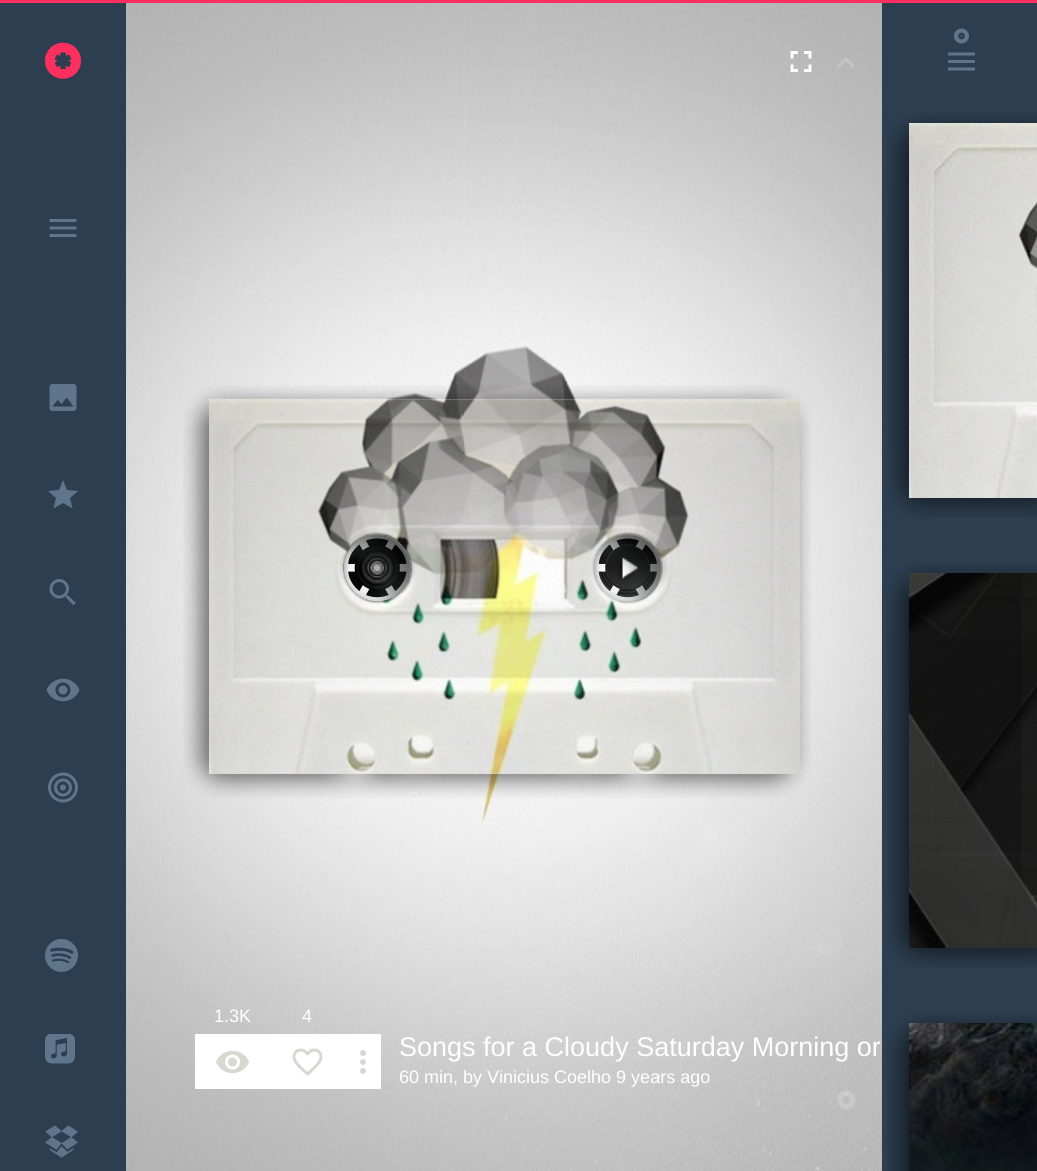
#include <cairo.h>
#include <math.h>
#include <stddef.h>

static cairo_t *c;
static void C(unsigned color){cairo_set_source_rgb(c, (color >> 16) / 255.0, (color >> 8 & 255) / 255.0, (color & 255) / 255.0);}
static void F(const char *family, double size, int italic, int bold){cairo_select_font_face(c, family, italic ? CAIRO_FONT_SLANT_ITALIC : CAIRO_FONT_SLANT_NORMAL,bold ? CAIRO_FONT_WEIGHT_BOLD : CAIRO_FONT_WEIGHT_NORMAL);cairo_set_font_size(c, size);}
static void T(double x, double y, const char *s){cairo_move_to(c, x, y);cairo_show_text(c, s);}
static void R(double x, double y, double w, double h){cairo_rectangle(c, x, y, w, h);cairo_fill(c);}
static void I(const char *path, double x, double y, double w, double h){cairo_surface_t *image = cairo_image_surface_create_from_png(path);cairo_save(c);cairo_set_source_surface(c, image, x, y);cairo_rectangle(c, x, y, w, h);cairo_fill(c);cairo_restore(c);cairo_surface_destroy(image);}
int main(void) {
cairo_surface_t *surface = cairo_image_surface_create(CAIRO_FORMAT_RGB24, 1037, 1171);
c = cairo_create(surface);
cairo_font_options_t *options = cairo_font_options_create();
cairo_font_options_set_hint_metrics(options, CAIRO_HINT_METRICS_OFF);
cairo_font_options_set_hint_style(options, CAIRO_HINT_STYLE_NONE);
cairo_set_font_options(c, options);
cairo_set_miter_limit(c, 4);
C(0x2c3e50);
cairo_paint(c);
C(0xff305f);
R(0,0,1037,3);
I("1.png",45,42,36,37);
I("2.png",49,219,28,18);
I("3.png",49,384,28,27);
C(0x5f758b);
cairo_new_path(c);
cairo_move_to(c,63,503);
cairo_line_to(c,53.5,508.5);
cairo_line_to(c,56,498);
cairo_line_to(c,48,491);
cairo_line_to(c,59,490);
cairo_line_to(c,63,480);
cairo_line_to(c,67,490);
cairo_line_to(c,78,491);
cairo_line_to(c,70,498);
cairo_line_to(c,72.5,508.5);
cairo_close_path(c);
cairo_fill(c);
I("4.png",49,579,27,26);
I("5.png",46,678,34,24);
I("6.png",48,772,30,31);
I("7.png",45,939,33,33);
I("8.png",45,1034,30,30);
I("9.png",45,1125,33,33);
I("10.png",126,3,756,1168);
cairo_set_source_rgba(c,1,0.996,1,0.2);
cairo_new_path(c);
cairo_move_to(c,839,68);
cairo_line_to(c,837,66);
cairo_line_to(c,846,57);
cairo_line_to(c,855,66);
cairo_line_to(c,853,68);
cairo_line_to(c,846,61);
cairo_close_path(c);
cairo_fill(c);
I("11.png",183,385,628,413);
C(0xd8d8d1);
R(209,399,591,375);
I("12.png",209,398,591,376);
I("15.png",343,535,69,67);
I("14.png",343,534,68,68);
I("13.png",342,532,71,72);
I("18.png",595,535,62,63);
I("17.png",594,534,68,68);
I("16.png",592,532,71,72);
I("19.png",790,51,22,21);
F("Liberation Sans",18,0,0);
C(0xffffff);
T(214,1022,"1.3K");
R(195,1034,186,54);
I("20.png",216,1050,33,24);
T(302,1022,"4");
I("21.png",292,1048,31,28);
I("22.png",360,1050,6,24);
F("Liberation Sans",27,0,0);
T(399,1056,"Songs for a Cloudy Saturday Morning or");
F("Liberation Sans",18,0,0);
T(399,1083,"60 min, by Vinicius Coelho 9 years ago");
R(195,1088,186,1);
cairo_new_path(c);
cairo_arc(c,846,1100,6.5,0,2 * M_PI);
cairo_set_source_rgba(c,1,0.996,1,0.2);
cairo_set_line_width(c,5);
cairo_stroke(c);
I("23.png",954,28,15,16);
I("24.png",948,52,27,19);
I("25.png",887,113,150,405);
I("26.png",909,123,128,375);
I("25.png",887,563,150,405);
I("27.png",909,573,128,375);
I("28.png",887,1013,150,158);
I("29.png",909,1023,128,148);
cairo_surface_write_to_png(surface, "o.png");
cairo_font_options_destroy(options);
cairo_destroy(c);
cairo_surface_destroy(surface);
return 0;
}
